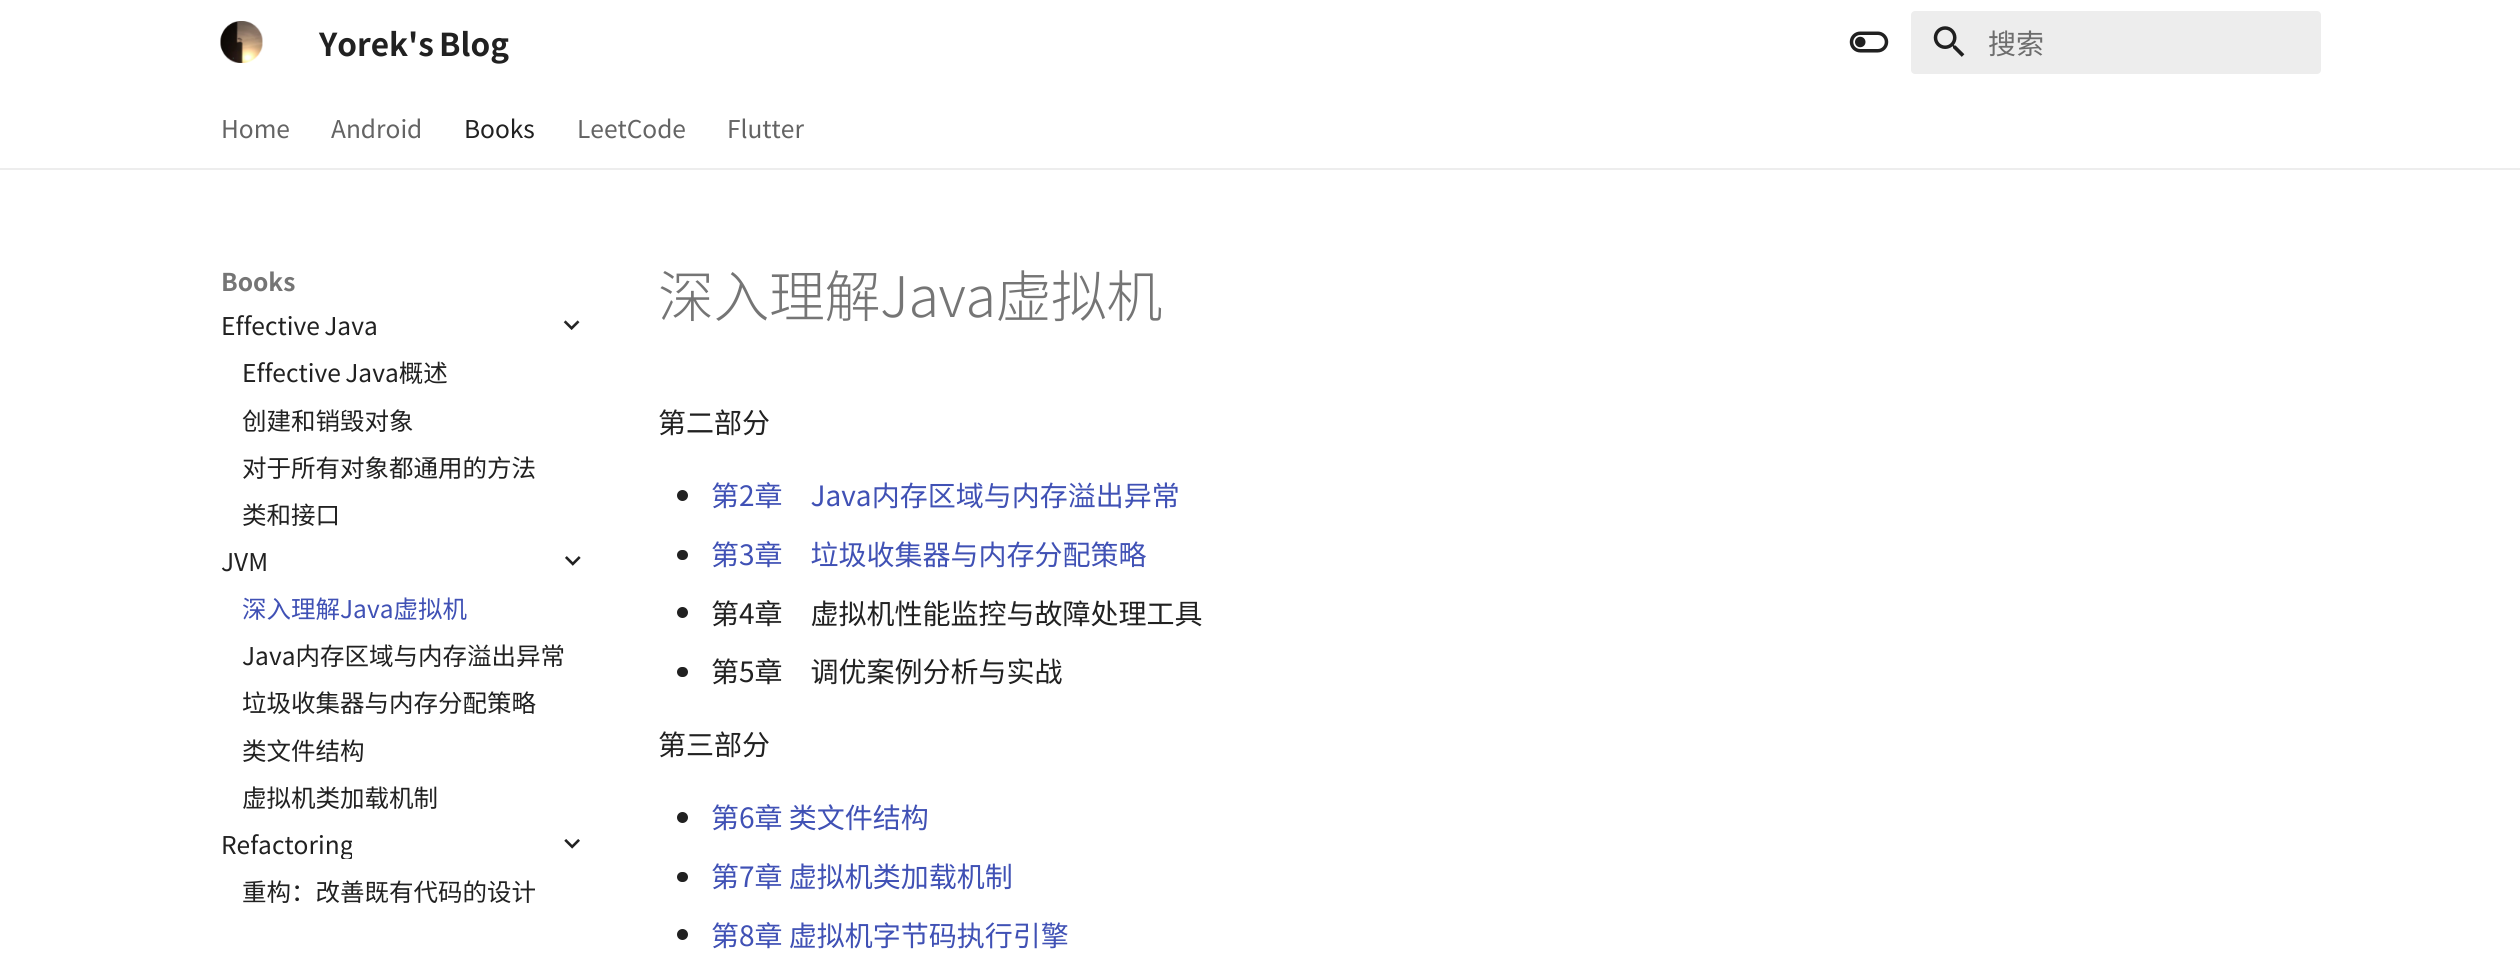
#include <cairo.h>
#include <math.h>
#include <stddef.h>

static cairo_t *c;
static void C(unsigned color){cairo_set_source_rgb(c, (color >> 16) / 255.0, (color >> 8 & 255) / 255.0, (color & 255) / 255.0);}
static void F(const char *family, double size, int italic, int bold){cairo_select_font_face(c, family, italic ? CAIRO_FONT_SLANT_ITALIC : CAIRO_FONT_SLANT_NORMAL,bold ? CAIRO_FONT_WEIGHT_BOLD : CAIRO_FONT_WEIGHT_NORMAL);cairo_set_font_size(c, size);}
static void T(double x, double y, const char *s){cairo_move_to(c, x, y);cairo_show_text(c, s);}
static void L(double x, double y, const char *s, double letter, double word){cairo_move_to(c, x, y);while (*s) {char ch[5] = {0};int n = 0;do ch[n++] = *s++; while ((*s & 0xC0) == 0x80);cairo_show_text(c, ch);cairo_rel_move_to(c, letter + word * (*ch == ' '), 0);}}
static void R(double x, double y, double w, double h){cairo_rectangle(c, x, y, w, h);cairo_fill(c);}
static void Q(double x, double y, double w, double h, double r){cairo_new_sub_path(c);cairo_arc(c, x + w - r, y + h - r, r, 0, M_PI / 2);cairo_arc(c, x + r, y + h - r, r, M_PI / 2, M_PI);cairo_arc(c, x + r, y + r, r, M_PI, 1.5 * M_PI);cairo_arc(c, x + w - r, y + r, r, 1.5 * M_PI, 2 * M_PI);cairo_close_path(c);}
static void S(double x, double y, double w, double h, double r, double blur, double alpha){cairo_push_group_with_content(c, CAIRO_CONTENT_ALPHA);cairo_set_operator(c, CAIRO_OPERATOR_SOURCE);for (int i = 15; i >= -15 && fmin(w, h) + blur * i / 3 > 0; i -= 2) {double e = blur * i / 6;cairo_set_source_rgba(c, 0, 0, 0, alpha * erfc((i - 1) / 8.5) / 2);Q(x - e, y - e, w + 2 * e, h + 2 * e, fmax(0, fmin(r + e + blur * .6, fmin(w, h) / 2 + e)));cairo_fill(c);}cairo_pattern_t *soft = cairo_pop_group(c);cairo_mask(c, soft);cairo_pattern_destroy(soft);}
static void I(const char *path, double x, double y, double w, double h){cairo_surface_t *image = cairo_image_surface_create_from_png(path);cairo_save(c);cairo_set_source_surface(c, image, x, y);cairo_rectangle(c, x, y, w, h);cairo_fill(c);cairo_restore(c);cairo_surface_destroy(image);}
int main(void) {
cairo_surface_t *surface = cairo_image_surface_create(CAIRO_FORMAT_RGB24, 2520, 960);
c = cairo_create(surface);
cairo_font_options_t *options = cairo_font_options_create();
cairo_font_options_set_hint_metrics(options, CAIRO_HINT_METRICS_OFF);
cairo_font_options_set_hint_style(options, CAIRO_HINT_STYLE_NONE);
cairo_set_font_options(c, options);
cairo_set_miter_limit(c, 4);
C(0xffffff);
cairo_paint(c);
I("1.png",220,21,43,42);
F("Noto Sans SC",31.5,0,1);
C(0x212121);
L(319,56,"Yorek's Blog",0,-2);
I("2.png",1849,31,40,22);
C(0xededed);
Q(1911,11,410,63,4);
cairo_fill(c);
I("3.png",1933,26,32,31);
F("Noto Sans SC",28,0,0);
C(0x6d6d6d);
T(1988,54,"搜索");
C(0xededed);
R(0,168,2520,2);
F("Noto Sans SC",24.5,0,0);
C(0x646464);
T(221,138,"Home");
T(331,138,"Android");
C(0x212121);
T(464,138,"Books");
C(0x646464);
T(577,138,"LeetCode");
T(727,138,"Flutter");
I("4.png",563,320,17,10);
cairo_save(c);
cairo_rectangle(c,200,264,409,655);
cairo_clip(c);
C(0xffffff);
S(207,250,395,60,0,7,1);
cairo_restore(c);
F("Noto Sans SC",24.5,0,1);
C(0x757575);
T(221,291,"Books");
F("Noto Sans SC",24.5,0,0);
C(0x212121);
L(221,335,"Effective Java",0,-1);
L(242,382,"Effective Java概述",0,-1);
T(242,430,"创建和销毁对象");
T(242,477,"对于所有对象都通用的方法");
T(242,524,"类和接口");
T(221,571,"JVM");
I("5.png",565,556,16,10);
C(0x4051b5);
T(242,618,"深入理解Java虚拟机");
C(0x212121);
T(242,665,"Java内存区域与内存溢出异常");
T(242,712,"垃圾收集器与内存分配策略");
T(242,760,"类文件结构");
T(242,807,"虚拟机类加载机制");
cairo_save(c);
cairo_rectangle(c,221,828,131,31);
cairo_clip(c);
T(221,854,"Refactoring");
cairo_restore(c);
I("6.png",564,839,16,10);
T(242,901,"重构：改善既有代码的设计");
F("Noto Sans SC Light",56,0,0);
C(0x757575);
L(658,317,"深入理解Java虚拟机",-.5,0);
F("Noto Sans SC",28,0,0);
C(0x212121);
T(658,433,"第二部分");
cairo_new_path(c);
cairo_arc(c,682.5,495.5,5.5,0,2 * M_PI);
cairo_fill(c);
C(0x4051b5);
T(711,506,"第2章　Java内存区域与内存溢出异常");
C(0x212121);
Q(677,550,11,10,5);
cairo_fill(c);
C(0x4051b5);
T(711,565,"第3章　垃圾收集器与内存分配策略");
C(0x212121);
cairo_new_path(c);
cairo_arc(c,682.5,612.5,5.5,0,2 * M_PI);
cairo_fill(c);
T(711,624,"第4章　虚拟机性能监控与故障处理工具");
Q(677,667,11,10,5);
cairo_fill(c);
T(711,682,"第5章　调优案例分析与实战");
T(658,755,"第三部分");
cairo_new_path(c);
cairo_arc(c,682.5,817.5,5.5,0,2 * M_PI);
cairo_fill(c);
C(0x4051b5);
T(711,828,"第6章 类文件结构");
C(0x212121);
Q(677,872,11,10,5);
cairo_fill(c);
C(0x4051b5);
T(711,887,"第7章 虚拟机类加载机制");
C(0x212121);
cairo_new_path(c);
cairo_arc(c,682.5,934.5,5.5,0,2 * M_PI);
cairo_fill(c);
C(0x4051b5);
T(711,946,"第8章 虚拟机字节码执行引擎");
cairo_surface_write_to_png(surface, "o.png");
cairo_font_options_destroy(options);
cairo_destroy(c);
cairo_surface_destroy(surface);
return 0;
}
